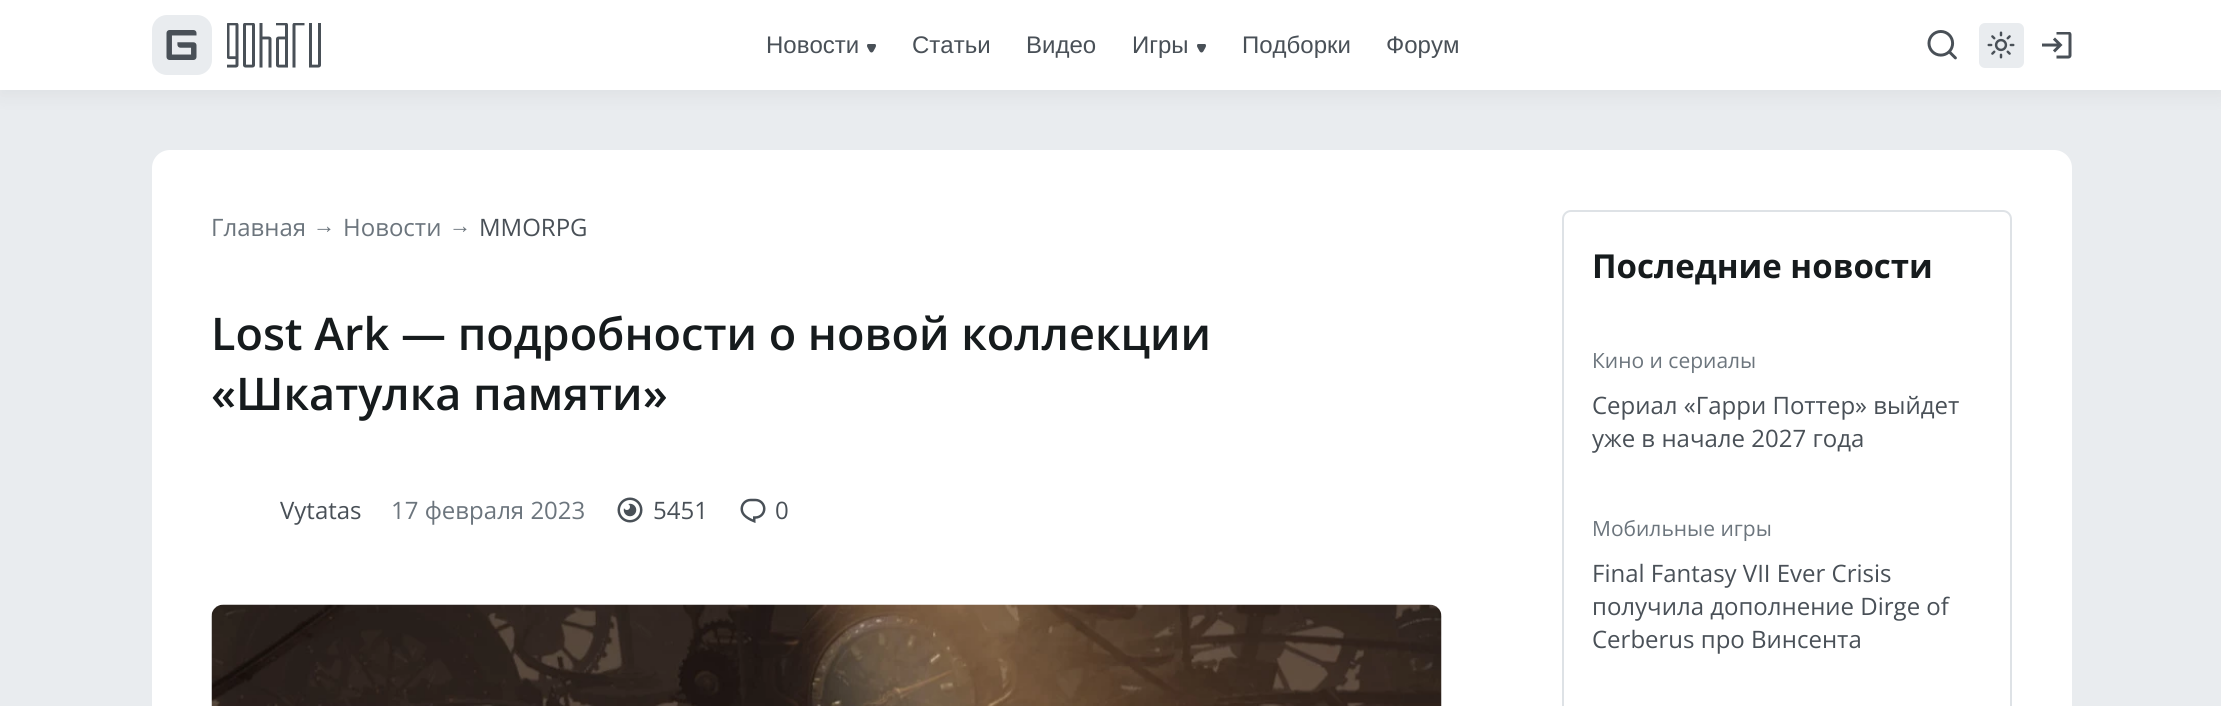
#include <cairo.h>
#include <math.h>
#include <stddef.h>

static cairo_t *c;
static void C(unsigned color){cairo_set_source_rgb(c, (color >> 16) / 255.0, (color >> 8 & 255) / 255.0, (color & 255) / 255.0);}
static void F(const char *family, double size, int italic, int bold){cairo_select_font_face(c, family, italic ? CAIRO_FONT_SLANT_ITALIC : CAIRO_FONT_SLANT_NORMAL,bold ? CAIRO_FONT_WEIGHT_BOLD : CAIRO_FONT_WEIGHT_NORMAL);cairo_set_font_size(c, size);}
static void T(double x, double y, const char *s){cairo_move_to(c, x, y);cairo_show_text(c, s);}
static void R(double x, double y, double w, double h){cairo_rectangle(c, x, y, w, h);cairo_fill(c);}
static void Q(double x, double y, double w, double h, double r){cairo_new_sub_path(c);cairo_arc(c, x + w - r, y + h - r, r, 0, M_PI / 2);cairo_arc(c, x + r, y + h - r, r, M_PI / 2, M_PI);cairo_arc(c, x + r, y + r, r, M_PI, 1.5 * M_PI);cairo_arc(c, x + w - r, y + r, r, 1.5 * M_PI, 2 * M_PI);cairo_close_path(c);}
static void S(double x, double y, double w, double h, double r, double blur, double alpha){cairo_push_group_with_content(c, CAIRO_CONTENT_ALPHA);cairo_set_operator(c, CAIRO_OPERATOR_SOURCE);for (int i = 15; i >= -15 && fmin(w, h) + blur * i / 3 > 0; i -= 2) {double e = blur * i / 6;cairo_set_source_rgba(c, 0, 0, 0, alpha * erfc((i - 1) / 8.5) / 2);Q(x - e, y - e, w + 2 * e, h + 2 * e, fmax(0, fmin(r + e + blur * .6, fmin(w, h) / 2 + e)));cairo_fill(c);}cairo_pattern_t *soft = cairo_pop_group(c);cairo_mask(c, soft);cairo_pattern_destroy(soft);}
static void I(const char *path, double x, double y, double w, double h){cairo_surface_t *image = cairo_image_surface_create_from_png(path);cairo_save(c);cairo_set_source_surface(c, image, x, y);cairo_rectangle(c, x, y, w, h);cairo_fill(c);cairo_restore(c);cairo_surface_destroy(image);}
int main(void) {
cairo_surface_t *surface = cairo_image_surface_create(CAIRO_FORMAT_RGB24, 2221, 706);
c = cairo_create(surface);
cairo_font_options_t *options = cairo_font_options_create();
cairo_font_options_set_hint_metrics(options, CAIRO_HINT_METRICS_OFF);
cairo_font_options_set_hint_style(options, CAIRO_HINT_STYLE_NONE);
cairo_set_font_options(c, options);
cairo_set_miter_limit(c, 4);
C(0xe9ecef);
cairo_paint(c);
C(0x000000);
S(0,6,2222,90,0,9,.05);
C(0xffffff);
R(0,0,2221,90);
I("1.png",152,15,60,60);
I("2.png",227,23,94,45);
F("Liberation Sans",24,0,0);
C(0x495057);
T(766,53,"Новости");
I("3.png",867,44,9,9);
T(912,53,"Статьи");
T(1026,53,"Видео");
T(1132,53,"Игры");
I("3.png",1197,44,9,9);
T(1242,53,"Подборки");
T(1386,53,"Форум");
I("4.png",1927,30,30,30);
C(0xe9ecef);
Q(1979,23,45,45,6);
cairo_fill(c);
I("5.png",1987,31,28,28);
I("6.png",2042,32,30,27);
C(0xffffff);
Q(152,150,1920,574,18);
cairo_fill(c);
F("Open Sans",24,0,0);
C(0x6c757d);
T(211,236,"Главная");
F("Liberation Sans",22,0,0);
T(313,233,"→");
F("Open Sans",24,0,0);
T(343,236,"Новости");
F("Liberation Sans",22,0,0);
T(449,233,"→");
F("Open Sans",24,0,0);
C(0x495057);
T(479,236,"MMORPG");
F("Open Sans SemiBold",45,0,0);
C(0x161b1d);
T(211,350,"Lost Ark — подробности о новой коллекции");
T(211,410,"«Шкатулка памяти»");
F("Open Sans",24,0,0);
C(0x495057);
T(280,519,"Vytatas");
C(0x6c757d);
T(391,519,"17 февраля 2023");
I("7.png",617,497,26,26);
C(0x495057);
T(653,519,"5451");
I("8.png",740,498,26,25);
T(775,519,"0");
I("9.png",211,604,1231,102);
Q(1563,211,448,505,8);
C(0xdee2e6);
cairo_stroke(c);
F("Open Sans",33,0,1);
C(0x161b1d);
T(1592,278,"Последние новости");
F("Open Sans",21,0,0);
C(0x6c757d);
T(1592,368,"Кино и сериалы");
F("Open Sans",24,0,0);
C(0x495057);
T(1592,414,"Сериал «Гарри Поттер» выйдет");
T(1592,447,"уже в начале 2027 года");
F("Open Sans",21,0,0);
C(0x6c757d);
T(1592,536,"Мобильные игры");
F("Open Sans",24,0,0);
C(0x495057);
T(1592,582,"Final Fantasy VII Ever Crisis");
T(1592,615,"получила дополнение Dirge of");
T(1592,648,"Cerberus про Винсента");
cairo_surface_write_to_png(surface, "o.png");
cairo_font_options_destroy(options);
cairo_destroy(c);
cairo_surface_destroy(surface);
return 0;
}
